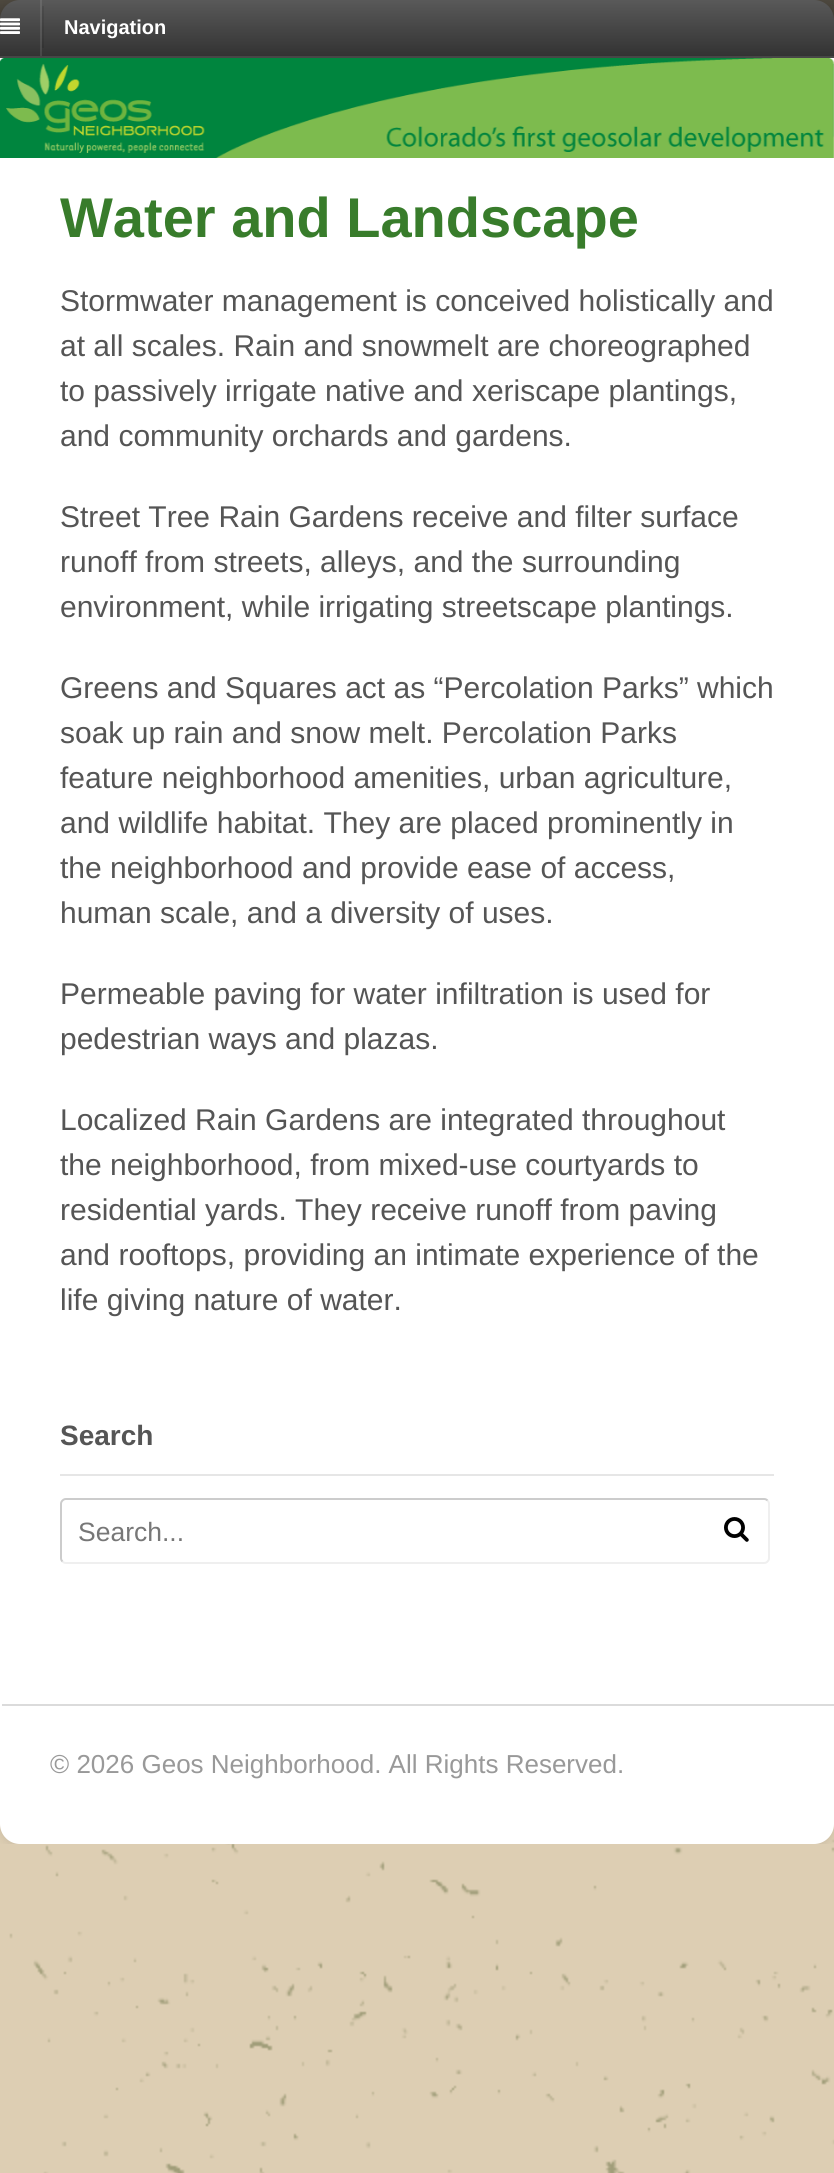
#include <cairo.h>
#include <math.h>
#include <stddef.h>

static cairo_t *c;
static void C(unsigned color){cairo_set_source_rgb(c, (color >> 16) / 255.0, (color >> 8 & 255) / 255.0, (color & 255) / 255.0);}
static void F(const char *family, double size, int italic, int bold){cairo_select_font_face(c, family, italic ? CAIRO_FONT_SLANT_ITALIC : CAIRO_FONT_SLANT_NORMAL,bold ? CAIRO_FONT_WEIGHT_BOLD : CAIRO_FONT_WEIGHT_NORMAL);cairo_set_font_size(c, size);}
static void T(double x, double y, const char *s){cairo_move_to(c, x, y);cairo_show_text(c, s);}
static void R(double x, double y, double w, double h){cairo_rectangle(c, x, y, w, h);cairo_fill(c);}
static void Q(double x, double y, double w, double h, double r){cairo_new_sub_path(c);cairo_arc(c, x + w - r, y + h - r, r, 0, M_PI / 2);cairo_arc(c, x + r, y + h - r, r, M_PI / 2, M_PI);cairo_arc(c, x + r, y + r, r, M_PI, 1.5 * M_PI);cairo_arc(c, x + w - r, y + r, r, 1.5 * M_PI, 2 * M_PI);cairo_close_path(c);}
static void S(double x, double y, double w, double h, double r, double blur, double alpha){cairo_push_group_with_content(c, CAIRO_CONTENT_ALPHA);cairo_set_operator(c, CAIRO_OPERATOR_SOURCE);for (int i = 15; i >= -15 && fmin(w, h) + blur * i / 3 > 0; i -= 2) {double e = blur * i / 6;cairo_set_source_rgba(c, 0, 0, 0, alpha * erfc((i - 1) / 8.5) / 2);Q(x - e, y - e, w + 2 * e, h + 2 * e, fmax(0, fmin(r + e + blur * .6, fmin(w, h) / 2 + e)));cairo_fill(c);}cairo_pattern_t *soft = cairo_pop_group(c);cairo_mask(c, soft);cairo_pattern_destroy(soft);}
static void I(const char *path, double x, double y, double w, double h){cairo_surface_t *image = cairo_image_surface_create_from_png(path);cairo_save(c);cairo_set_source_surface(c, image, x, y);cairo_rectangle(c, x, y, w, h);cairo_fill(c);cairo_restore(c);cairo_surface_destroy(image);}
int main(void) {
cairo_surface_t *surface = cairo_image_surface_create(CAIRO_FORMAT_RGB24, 834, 2173);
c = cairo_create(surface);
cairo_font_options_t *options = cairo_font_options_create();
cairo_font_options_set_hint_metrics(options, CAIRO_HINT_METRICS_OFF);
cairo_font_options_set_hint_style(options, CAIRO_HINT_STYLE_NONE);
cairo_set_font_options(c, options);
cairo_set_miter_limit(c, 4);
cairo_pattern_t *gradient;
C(0xffffff);
cairo_paint(c);
I("1.png",0,0,834,2173);
cairo_save(c);
cairo_rectangle(c,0,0,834,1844);
cairo_clip(c);
C(0x000000);
S(0,2,834,1844,20,5,.1);
cairo_restore(c);
C(0xffffff);
Q(0,0,834,1844,20);
cairo_fill(c);
gradient = cairo_pattern_create_linear(417,0,417,56);
cairo_pattern_add_color_stop_rgba(gradient,0,0,0,0,.65);
cairo_pattern_add_color_stop_rgba(gradient,1,0,0,0,.8);
cairo_set_source(c,gradient);
cairo_pattern_destroy(gradient);
R(0,0,834,56);
C(0x474747);
R(0,56,834,2);
cairo_set_source_rgba(c,1,1,1,0.1);
R(40,0,2,56);
I("2.png",0,18,20,16);
F("Liberation Sans",20,0,1);
C(0xffffff);
T(64,34,"Navigation");
cairo_set_source_rgba(c,0,0,0,0.1);
R(42,6,2,42);
I("3.png",0,58,834,100);
F("Liberation Sans",56,0,1);
C(0x387c2b);
T(60,237,"Water and Landscape");
F("Liberation Sans",30,0,0);
C(0x555555);
T(60,311,"Stormwater management is conceived holistically and");
T(60,356,"at all scales. Rain and snowmelt are choreographed");
T(60,401,"to passively irrigate native and xeriscape plantings,");
T(60,446,"and community orchards and gardens.");
T(60,527,"Street Tree Rain Gardens receive and filter surface");
T(60,572,"runoff from streets, alleys, and the surrounding");
T(60,617,"environment, while irrigating streetscape plantings.");
T(60,698,"Greens and Squares act as “Percolation Parks” which");
T(60,743,"soak up rain and snow melt. Percolation Parks");
T(60,788,"feature neighborhood amenities, urban agriculture,");
T(60,833,"and wildlife habitat. They are placed prominently in");
T(60,878,"the neighborhood and provide ease of access,");
T(60,923,"human scale, and a diversity of uses.");
T(60,1004,"Permeable paving for water infiltration is used for");
T(60,1049,"pedestrian ways and plazas.");
T(60,1130,"Localized Rain Gardens are integrated throughout");
T(60,1175,"the neighborhood, from mixed-use courtyards to");
T(60,1220,"residential yards. They receive runoff from paving");
T(60,1265,"and rooftops, providing an intimate experience of the");
T(60,1310,"life giving nature of water.");
C(0xe6e6e6);
R(60,1474,714,2);
F("Liberation Sans",28,0,1);
C(0x555555);
T(60,1445,"Search");
cairo_new_path(c);
cairo_move_to(c,767.5,1500.5);
cairo_curve_to(c,768.5,1501.5,769,1502.5,769,1504);
cairo_line_to(c,769,1558);
cairo_curve_to(c,769,1559.5,768.5,1560.5,767.5,1561.5);
cairo_curve_to(c,766.5,1562.5,765.5,1563,764,1563);
cairo_line_to(c,66,1563);
cairo_curve_to(c,64.5,1563,63.5,1562.5,62.5,1561.5);
C(0xefefef);
cairo_stroke(c);
cairo_new_path(c);
cairo_move_to(c,62.5,1561.5);
cairo_curve_to(c,61.5,1560.5,61,1559.5,61,1558);
cairo_line_to(c,61,1504);
cairo_curve_to(c,61,1502.5,61.5,1501.5,62.5,1500.5);
cairo_curve_to(c,63.5,1499.5,64.5,1499,66,1499);
cairo_line_to(c,764,1499);
cairo_curve_to(c,765.5,1499,766.5,1499.5,767.5,1500.5);
C(0xcccccc);
cairo_stroke(c);
F("Liberation Sans",26.5,0,0);
C(0x777777);
T(78,1541,"Search...");
I("4.png",724,1517,25,25);
C(0xdbdbdb);
R(2,1704,832,2);
F("Liberation Sans",26,0,0);
C(0x999999);
T(50,1773,"© 2026 Geos Neighborhood. All Rights Reserved.");
cairo_surface_write_to_png(surface, "o.png");
cairo_font_options_destroy(options);
cairo_destroy(c);
cairo_surface_destroy(surface);
return 0;
}
